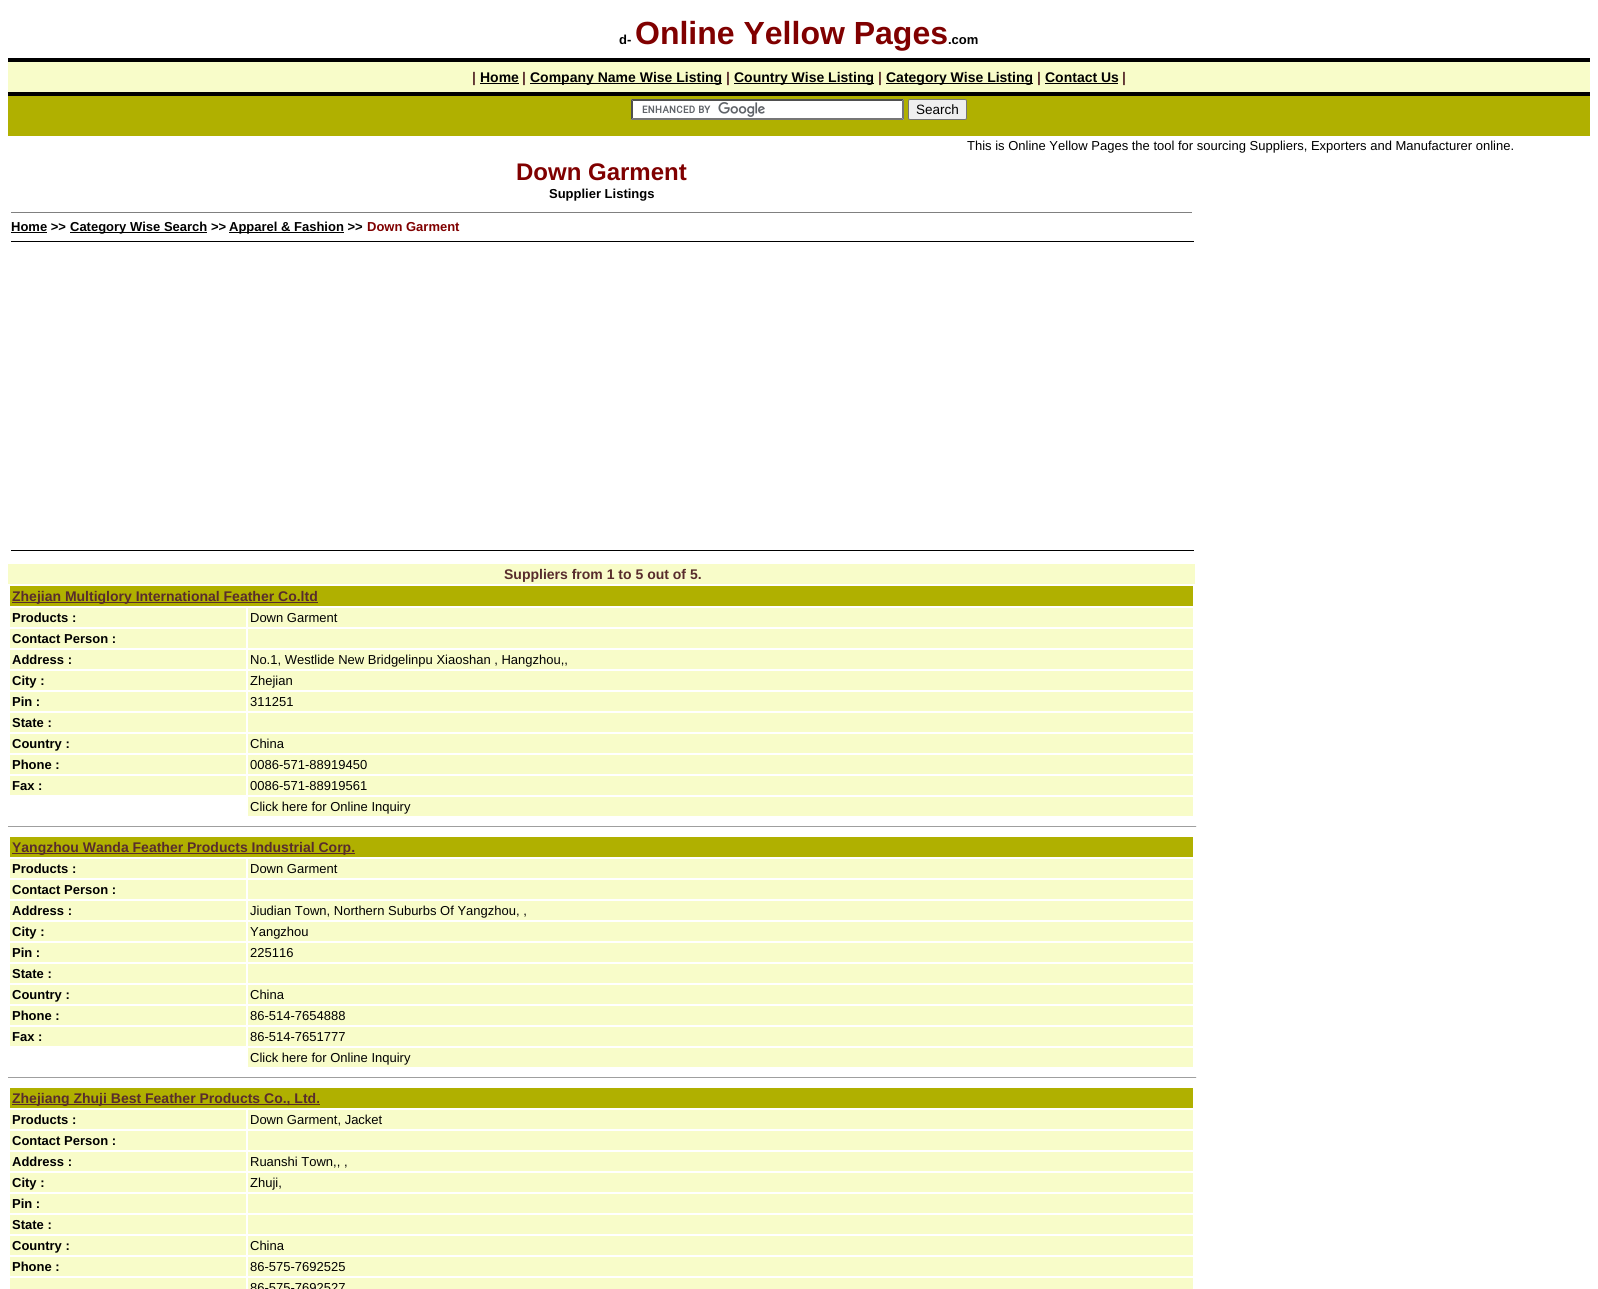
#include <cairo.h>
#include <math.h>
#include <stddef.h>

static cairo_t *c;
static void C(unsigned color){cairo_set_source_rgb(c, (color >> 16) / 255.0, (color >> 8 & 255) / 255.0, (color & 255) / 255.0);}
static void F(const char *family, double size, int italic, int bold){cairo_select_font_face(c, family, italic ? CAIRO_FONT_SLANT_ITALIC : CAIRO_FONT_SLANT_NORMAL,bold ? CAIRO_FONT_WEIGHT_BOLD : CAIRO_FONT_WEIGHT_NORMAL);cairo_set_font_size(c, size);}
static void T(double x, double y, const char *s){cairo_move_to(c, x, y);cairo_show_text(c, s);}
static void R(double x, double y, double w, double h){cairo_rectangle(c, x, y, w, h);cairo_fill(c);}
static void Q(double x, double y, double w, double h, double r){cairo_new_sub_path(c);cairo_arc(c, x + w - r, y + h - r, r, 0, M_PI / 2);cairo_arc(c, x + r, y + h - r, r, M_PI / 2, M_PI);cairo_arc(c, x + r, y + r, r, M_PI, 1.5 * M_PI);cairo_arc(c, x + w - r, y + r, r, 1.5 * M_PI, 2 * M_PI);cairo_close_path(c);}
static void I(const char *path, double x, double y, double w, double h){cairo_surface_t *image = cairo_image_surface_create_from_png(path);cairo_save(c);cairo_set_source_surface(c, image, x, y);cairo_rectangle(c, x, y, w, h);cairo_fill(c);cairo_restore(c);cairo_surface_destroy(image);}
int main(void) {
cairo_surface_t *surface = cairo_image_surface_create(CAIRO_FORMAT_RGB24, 1598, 1289);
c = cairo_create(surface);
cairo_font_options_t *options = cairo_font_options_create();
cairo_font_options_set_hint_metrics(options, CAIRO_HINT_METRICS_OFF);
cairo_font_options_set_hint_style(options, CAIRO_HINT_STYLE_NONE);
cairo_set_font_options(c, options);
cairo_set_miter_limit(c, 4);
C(0xffffff);
cairo_paint(c);
F("Liberation Sans",13,0,1);
C(0x000000);
T(619,44,"d-");
F("Liberation Sans",32,0,1);
C(0x800000);
T(635,44,"Online Yellow Pages");
F("Liberation Sans",13,0,1);
C(0x000000);
T(948,44,".com");
R(8,58,1582,4);
C(0xf8fcc9);
R(8,62,1582,30);
F("Liberation Sans",14,0,1);
C(0x582c2c);
T(472,82,"|");
C(0x000000);
T(480,82,"Home");
R(480,83,39,1);
C(0x582c2c);
T(522,82,"|");
C(0x000000);
R(530,83,192,1);
T(530,82,"Company Name Wise Listing");
C(0x582c2c);
T(726,82,"|");
C(0x000000);
R(734,83,140,1);
T(734,82,"Country Wise Listing");
C(0x582c2c);
T(878,82,"|");
C(0x000000);
R(886,83,147,1);
T(886,82,"Category Wise Listing");
C(0x582c2c);
T(1037,82,"|");
C(0x000000);
T(1045,82,"Contact Us");
R(1045,83,73,1);
C(0x582c2c);
T(1122,82,"|");
C(0x000000);
R(8,92,1582,4);
C(0xb0b000);
R(8,96,1582,40);
C(0xffffff);
R(631,99,273,21);
I("1.png",642,102,123,15);
C(0x4f4f4f);
cairo_new_path(c);
cairo_move_to(c,631,99);
cairo_line_to(c,904,99);
cairo_line_to(c,902,101);
cairo_line_to(c,633,101);
cairo_close_path(c);
cairo_fill(c);
C(0x767676);
cairo_new_path(c);
cairo_move_to(c,904,99);
cairo_line_to(c,904,120);
cairo_line_to(c,902,118);
cairo_line_to(c,902,101);
cairo_close_path(c);
cairo_fill(c);
cairo_new_path(c);
cairo_move_to(c,904,120);
cairo_line_to(c,631,120);
cairo_line_to(c,633,118);
cairo_line_to(c,902,118);
cairo_close_path(c);
cairo_fill(c);
C(0x4f4f4f);
cairo_new_path(c);
cairo_move_to(c,631,120);
cairo_line_to(c,631,99);
cairo_line_to(c,633,101);
cairo_line_to(c,633,118);
cairo_close_path(c);
cairo_fill(c);
C(0xefefef);
Q(908.5,99.5,58,20,1.5);
cairo_fill_preserve(c);
C(0x767676);
cairo_set_line_width(c,1);
cairo_stroke(c);
F("Liberation Sans",13.5,0,0);
C(0x000000);
T(916,114,"Search");
F("Liberation Sans",13,0,0);
T(967,150,"This is Online Yellow Pages the tool for sourcing Suppliers, Exporters and Manufacturer online.");
F("Liberation Sans",24,0,1);
C(0x800000);
T(516,180,"Down Garment");
F("Liberation Sans",13,0,1);
C(0x000000);
T(549,198,"Supplier Listings");
C(0x808080);
R(11,212,1181,1);
C(0x000000);
T(11,231,"Home >>");
R(11,232,36,1);
R(70,232,137,1);
T(70,231,"Category Wise Search >>");
R(229,232,115,1);
T(229,231,"Apparel & Fashion >>");
C(0x800000);
T(367,231,"Down Garment");
C(0x000000);
R(11,241,1183,1);
R(11,550,1183,1);
C(0xf8fcc9);
R(8,564,1187,20);
F("Liberation Sans",14,0,1);
C(0x582c2c);
T(504,579,"Suppliers from 1 to 5 out of 5.");
C(0xb0b000);
R(10,586,1183,20);
C(0x582c2c);
R(12,602,306,1);
T(12,601,"Zhejian Multiglory International Feather Co.ltd");
C(0xf8fcc9);
R(10,608,236,19);
F("Liberation Sans",13,0,1);
C(0x000000);
T(12,622,"Products :");
C(0xf8fcc9);
R(248,608,945,19);
F("Liberation Sans",13,0,0);
C(0x000000);
T(250,622,"Down Garment");
C(0xf8fcc9);
R(10,629,236,19);
F("Liberation Sans",13,0,1);
C(0x000000);
T(12,643,"Contact Person :");
C(0xf8fcc9);
R(248,629,945,19);
R(10,650,236,19);
C(0x000000);
T(12,664,"Address :");
C(0xf8fcc9);
R(248,650,945,19);
F("Liberation Sans",13,0,0);
C(0x000000);
T(250,664,"No.1, Westlide New Bridgelinpu Xiaoshan , Hangzhou,,");
C(0xf8fcc9);
R(10,671,236,19);
F("Liberation Sans",13,0,1);
C(0x000000);
T(12,685,"City :");
C(0xf8fcc9);
R(248,671,945,19);
F("Liberation Sans",13,0,0);
C(0x000000);
T(250,685,"Zhejian");
C(0xf8fcc9);
R(10,692,236,19);
F("Liberation Sans",13,0,1);
C(0x000000);
T(12,706,"Pin :");
C(0xf8fcc9);
R(248,692,945,19);
F("Liberation Sans",13,0,0);
C(0x000000);
T(250,706,"311251");
C(0xf8fcc9);
R(10,713,236,19);
F("Liberation Sans",13,0,1);
C(0x000000);
T(12,727,"State :");
C(0xf8fcc9);
R(248,713,945,19);
R(10,734,236,19);
C(0x000000);
T(12,748,"Country :");
C(0xf8fcc9);
R(248,734,945,19);
F("Liberation Sans",13,0,0);
C(0x000000);
T(250,748,"China");
C(0xf8fcc9);
R(10,755,236,19);
F("Liberation Sans",13,0,1);
C(0x000000);
T(12,769,"Phone :");
C(0xf8fcc9);
R(248,755,945,19);
F("Liberation Sans",13,0,0);
C(0x000000);
T(250,769,"0086-571-88919450");
C(0xf8fcc9);
R(10,776,236,19);
F("Liberation Sans",13,0,1);
C(0x000000);
T(12,790,"Fax :");
C(0xf8fcc9);
R(248,776,945,19);
F("Liberation Sans",13,0,0);
C(0x000000);
T(250,790,"0086-571-88919561");
C(0xf8fcc9);
R(248,797,945,19);
C(0x000000);
T(250,811,"Click here for Online Inquiry");
C(0x9f9f9f);
R(8,826,1189,1);
C(0xeeeeee);
R(1196,826,1,1);
C(0xb0b000);
R(10,837,1183,20);
C(0x582c2c);
R(12,853,343,1);
F("Liberation Sans",14,0,1);
T(12,852,"Yangzhou Wanda Feather Products Industrial Corp.");
C(0xf8fcc9);
R(10,859,236,19);
F("Liberation Sans",13,0,1);
C(0x000000);
T(12,873,"Products :");
C(0xf8fcc9);
R(248,859,945,19);
F("Liberation Sans",13,0,0);
C(0x000000);
T(250,873,"Down Garment");
C(0xf8fcc9);
R(10,880,236,19);
F("Liberation Sans",13,0,1);
C(0x000000);
T(12,894,"Contact Person :");
C(0xf8fcc9);
R(248,880,945,19);
R(10,901,236,19);
C(0x000000);
T(12,915,"Address :");
C(0xf8fcc9);
R(248,901,945,19);
F("Liberation Sans",13,0,0);
C(0x000000);
T(250,915,"Jiudian Town, Northern Suburbs Of Yangzhou, ,");
C(0xf8fcc9);
R(10,922,236,19);
F("Liberation Sans",13,0,1);
C(0x000000);
T(12,936,"City :");
C(0xf8fcc9);
R(248,922,945,19);
F("Liberation Sans",13,0,0);
C(0x000000);
T(250,936,"Yangzhou");
C(0xf8fcc9);
R(10,943,236,19);
F("Liberation Sans",13,0,1);
C(0x000000);
T(12,957,"Pin :");
C(0xf8fcc9);
R(248,943,945,19);
F("Liberation Sans",13,0,0);
C(0x000000);
T(250,957,"225116");
C(0xf8fcc9);
R(10,964,236,19);
F("Liberation Sans",13,0,1);
C(0x000000);
T(12,978,"State :");
C(0xf8fcc9);
R(248,964,945,19);
R(10,985,236,19);
C(0x000000);
T(12,999,"Country :");
C(0xf8fcc9);
R(248,985,945,19);
F("Liberation Sans",13,0,0);
C(0x000000);
T(250,999,"China");
C(0xf8fcc9);
R(10,1006,236,19);
F("Liberation Sans",13,0,1);
C(0x000000);
T(12,1020,"Phone :");
C(0xf8fcc9);
R(248,1006,945,19);
F("Liberation Sans",13,0,0);
C(0x000000);
T(250,1020,"86-514-7654888");
C(0xf8fcc9);
R(10,1027,236,19);
F("Liberation Sans",13,0,1);
C(0x000000);
T(12,1041,"Fax :");
C(0xf8fcc9);
R(248,1027,945,19);
F("Liberation Sans",13,0,0);
C(0x000000);
T(250,1041,"86-514-7651777");
C(0xf8fcc9);
R(248,1048,945,19);
C(0x000000);
T(250,1062,"Click here for Online Inquiry");
C(0x9f9f9f);
R(8,1077,1189,1);
C(0xeeeeee);
R(1196,1077,1,1);
C(0xb0b000);
R(10,1088,1183,20);
C(0x582c2c);
R(12,1104,308,1);
F("Liberation Sans",14,0,1);
T(12,1103,"Zhejiang Zhuji Best Feather Products Co., Ltd.");
C(0xf8fcc9);
R(10,1110,236,19);
F("Liberation Sans",13,0,1);
C(0x000000);
T(12,1124,"Products :");
C(0xf8fcc9);
R(248,1110,945,19);
F("Liberation Sans",13,0,0);
C(0x000000);
T(250,1124,"Down Garment, Jacket");
C(0xf8fcc9);
R(10,1131,236,19);
F("Liberation Sans",13,0,1);
C(0x000000);
T(12,1145,"Contact Person :");
C(0xf8fcc9);
R(248,1131,945,19);
R(10,1152,236,19);
C(0x000000);
T(12,1166,"Address :");
C(0xf8fcc9);
R(248,1152,945,19);
F("Liberation Sans",13,0,0);
C(0x000000);
T(250,1166,"Ruanshi Town,, ,");
C(0xf8fcc9);
R(10,1173,236,19);
F("Liberation Sans",13,0,1);
C(0x000000);
T(12,1187,"City :");
C(0xf8fcc9);
R(248,1173,945,19);
F("Liberation Sans",13,0,0);
C(0x000000);
T(250,1187,"Zhuji,");
C(0xf8fcc9);
R(10,1194,236,19);
F("Liberation Sans",13,0,1);
C(0x000000);
T(12,1208,"Pin :");
C(0xf8fcc9);
R(248,1194,945,19);
R(10,1215,236,19);
C(0x000000);
T(12,1229,"State :");
C(0xf8fcc9);
R(248,1215,945,19);
R(10,1236,236,19);
C(0x000000);
T(12,1250,"Country :");
C(0xf8fcc9);
R(248,1236,945,19);
F("Liberation Sans",13,0,0);
C(0x000000);
T(250,1250,"China");
C(0xf8fcc9);
R(10,1257,236,19);
F("Liberation Sans",13,0,1);
C(0x000000);
T(12,1271,"Phone :");
C(0xf8fcc9);
R(248,1257,945,19);
F("Liberation Sans",13,0,0);
C(0x000000);
T(250,1271,"86-575-7692525");
C(0xf8fcc9);
R(10,1278,236,11);
R(248,1278,945,11);
C(0x000000);
T(250,1292,"86-575-7692527");
cairo_surface_write_to_png(surface, "o.png");
cairo_font_options_destroy(options);
cairo_destroy(c);
cairo_surface_destroy(surface);
return 0;
}
